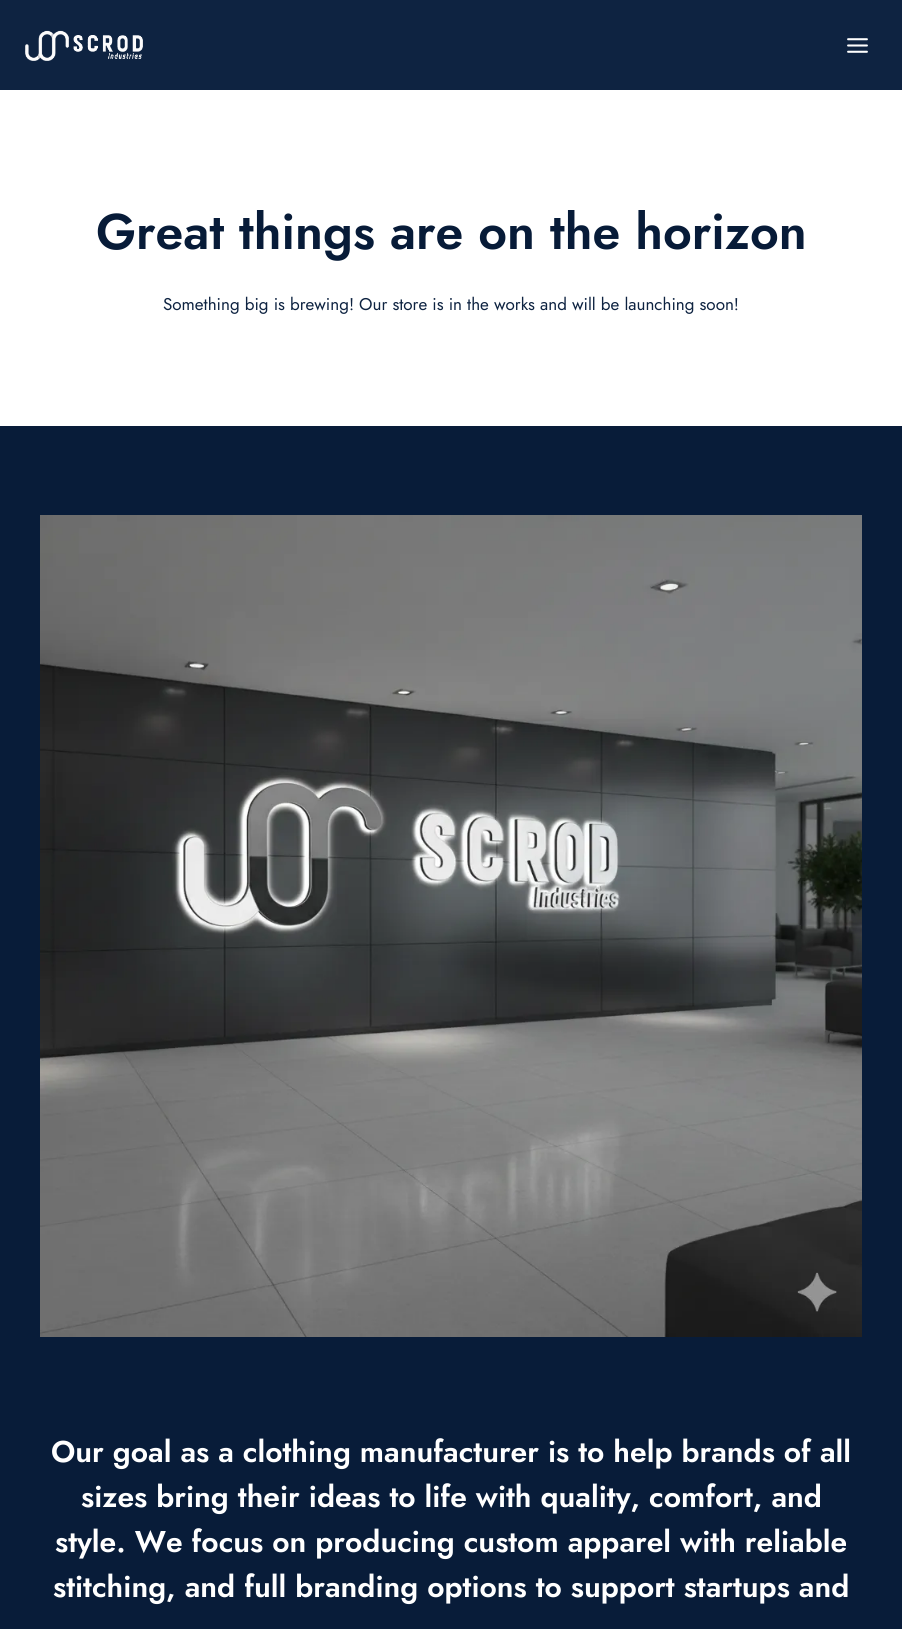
#include <cairo.h>
#include <math.h>
#include <stddef.h>

static cairo_t *c;
static void C(unsigned color){cairo_set_source_rgb(c, (color >> 16) / 255.0, (color >> 8 & 255) / 255.0, (color & 255) / 255.0);}
static void F(const char *family, double size, int italic, int bold){cairo_select_font_face(c, family, italic ? CAIRO_FONT_SLANT_ITALIC : CAIRO_FONT_SLANT_NORMAL,bold ? CAIRO_FONT_WEIGHT_BOLD : CAIRO_FONT_WEIGHT_NORMAL);cairo_set_font_size(c, size);}
static void T(double x, double y, const char *s){cairo_move_to(c, x, y);cairo_show_text(c, s);}
static void R(double x, double y, double w, double h){cairo_rectangle(c, x, y, w, h);cairo_fill(c);}
static void I(const char *path, double x, double y, double w, double h){cairo_surface_t *image = cairo_image_surface_create_from_png(path);cairo_save(c);cairo_set_source_surface(c, image, x, y);cairo_rectangle(c, x, y, w, h);cairo_fill(c);cairo_restore(c);cairo_surface_destroy(image);}
int main(void) {
cairo_surface_t *surface = cairo_image_surface_create(CAIRO_FORMAT_RGB24, 902, 1629);
c = cairo_create(surface);
cairo_font_options_t *options = cairo_font_options_create();
cairo_font_options_set_hint_metrics(options, CAIRO_HINT_METRICS_OFF);
cairo_font_options_set_hint_style(options, CAIRO_HINT_STYLE_NONE);
cairo_set_font_options(c, options);
cairo_set_miter_limit(c, 4);
C(0xffffff);
cairo_paint(c);
C(0x0e2341);
R(0,0,902,90);
I("1.png",25,30,118,31);
I("2.png",847,38,21,15);
F("Jost SemiBold",50,0,0);
C(0x071b38);
T(96,249,"Great things are on the horizon");
F("Jost",17,0,0);
C(0x0e2341);
T(163,310,"Something big is brewing! Our store is in the works and will be launching soon!");
C(0x081c39);
R(0,426,902,1203);
I("3.png",40,515,822,822);
F("Jost SemiBold",30,0,0);
C(0xffffff);
T(51,1462,"Our goal as a clothing manufacturer is to help brands of all");
T(81,1507,"sizes bring their ideas to life with quality, comfort, and");
T(55,1552,"style. We focus on producing custom apparel with reliable");
T(53,1597,"stitching, and full branding options to support startups and");
cairo_surface_write_to_png(surface, "o.png");
cairo_font_options_destroy(options);
cairo_destroy(c);
cairo_surface_destroy(surface);
return 0;
}
